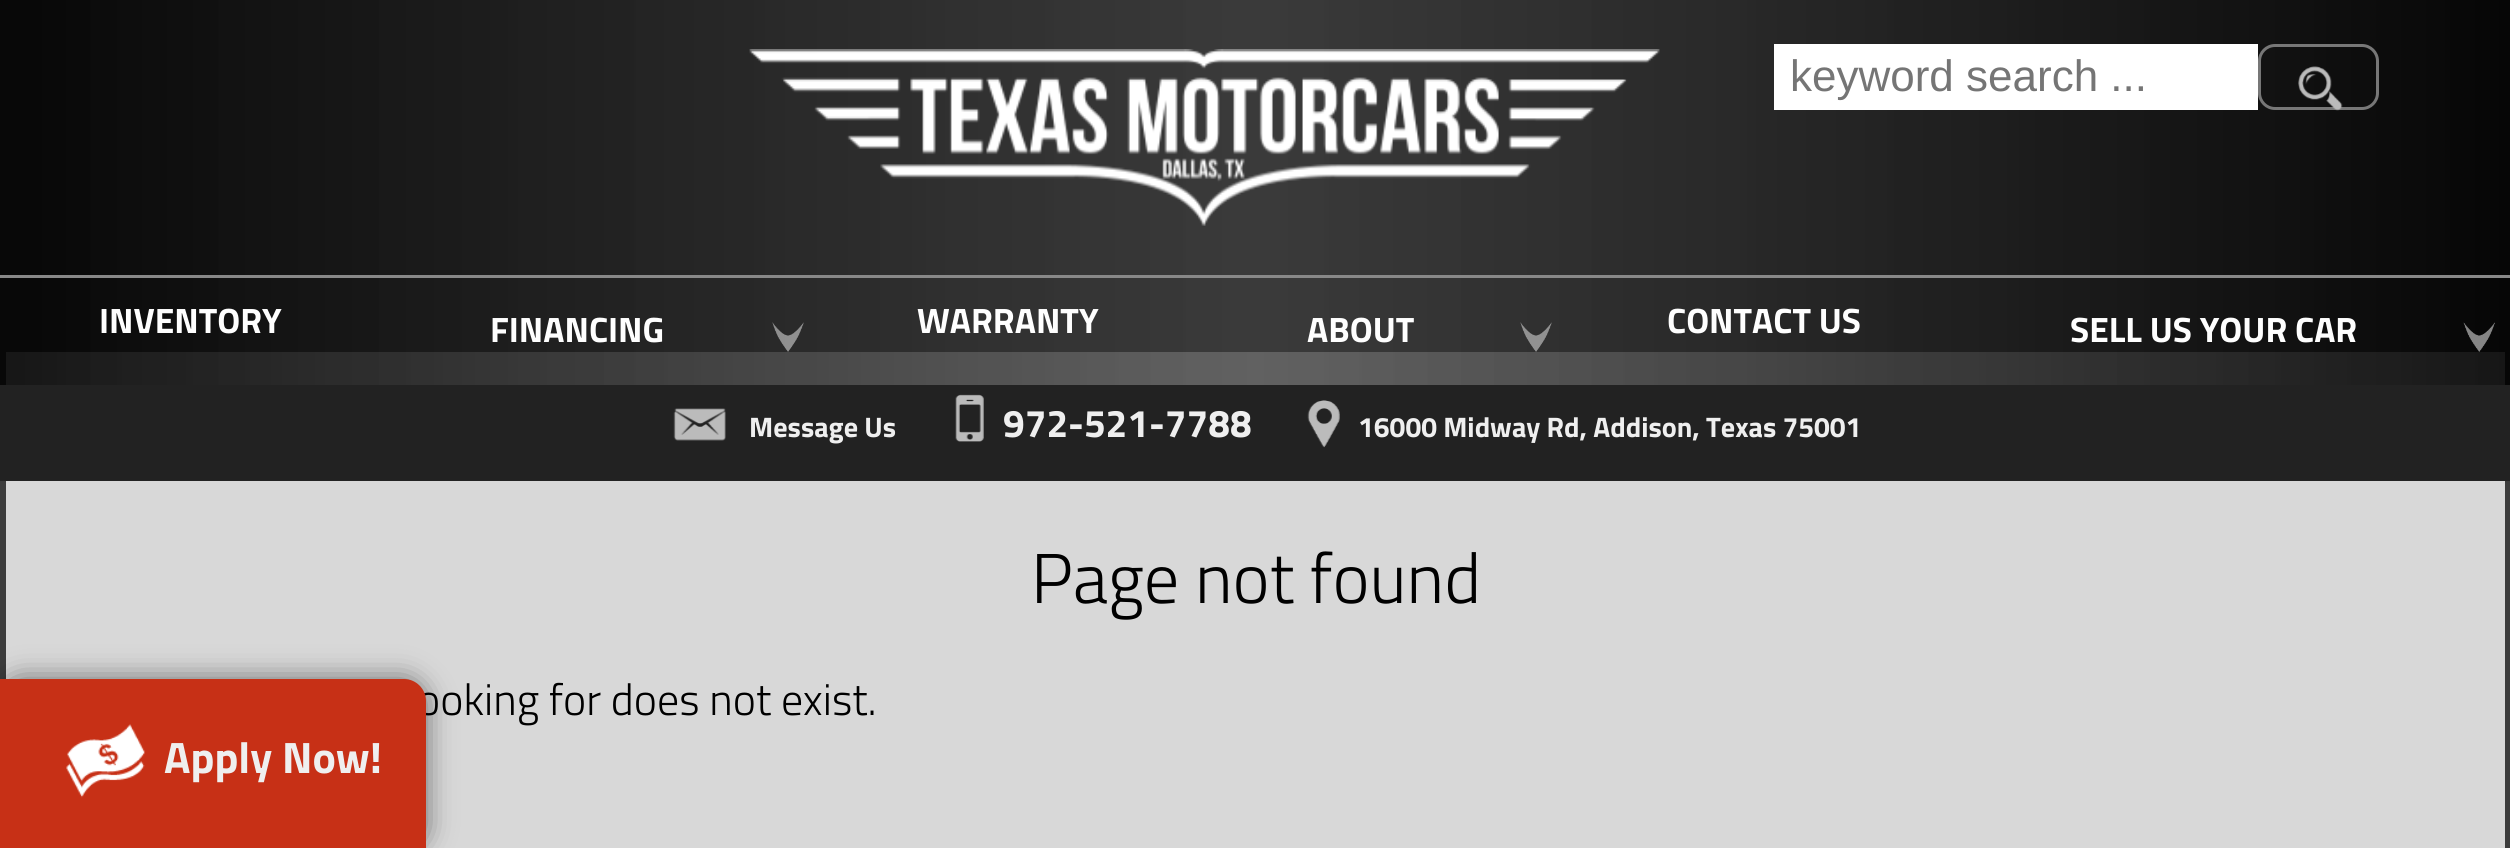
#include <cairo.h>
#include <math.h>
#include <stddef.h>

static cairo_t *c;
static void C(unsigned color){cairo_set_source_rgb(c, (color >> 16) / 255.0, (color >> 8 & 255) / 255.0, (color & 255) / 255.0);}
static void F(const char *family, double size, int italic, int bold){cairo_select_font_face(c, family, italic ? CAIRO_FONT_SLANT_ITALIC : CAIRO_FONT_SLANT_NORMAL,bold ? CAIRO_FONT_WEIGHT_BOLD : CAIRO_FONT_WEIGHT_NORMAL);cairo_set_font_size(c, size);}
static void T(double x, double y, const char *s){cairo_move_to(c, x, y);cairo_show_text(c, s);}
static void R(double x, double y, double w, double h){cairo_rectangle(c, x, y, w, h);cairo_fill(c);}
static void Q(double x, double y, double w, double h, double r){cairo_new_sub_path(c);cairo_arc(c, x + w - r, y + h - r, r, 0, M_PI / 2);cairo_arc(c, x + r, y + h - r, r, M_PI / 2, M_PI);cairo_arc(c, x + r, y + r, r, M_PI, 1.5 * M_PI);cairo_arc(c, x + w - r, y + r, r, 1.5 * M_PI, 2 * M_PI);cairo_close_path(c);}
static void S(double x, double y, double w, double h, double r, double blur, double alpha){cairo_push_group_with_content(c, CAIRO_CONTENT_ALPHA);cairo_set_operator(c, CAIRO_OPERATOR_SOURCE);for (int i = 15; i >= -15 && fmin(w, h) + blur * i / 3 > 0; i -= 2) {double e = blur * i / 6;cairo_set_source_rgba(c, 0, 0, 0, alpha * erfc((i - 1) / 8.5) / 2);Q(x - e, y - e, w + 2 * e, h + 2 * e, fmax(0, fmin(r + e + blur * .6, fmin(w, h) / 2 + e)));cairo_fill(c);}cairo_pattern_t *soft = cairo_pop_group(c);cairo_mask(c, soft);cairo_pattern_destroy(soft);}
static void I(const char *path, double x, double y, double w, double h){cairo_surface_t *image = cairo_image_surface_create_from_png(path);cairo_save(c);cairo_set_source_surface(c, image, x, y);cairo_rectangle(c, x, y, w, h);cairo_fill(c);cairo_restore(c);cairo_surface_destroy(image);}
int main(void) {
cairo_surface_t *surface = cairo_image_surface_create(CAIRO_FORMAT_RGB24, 2510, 848);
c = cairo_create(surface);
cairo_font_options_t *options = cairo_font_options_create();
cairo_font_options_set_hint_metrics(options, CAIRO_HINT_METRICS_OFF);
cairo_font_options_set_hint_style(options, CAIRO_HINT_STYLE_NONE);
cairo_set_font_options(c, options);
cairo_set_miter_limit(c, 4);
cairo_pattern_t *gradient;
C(0x3c3c3c);
cairo_paint(c);
C(0xd8d8d8);
R(6,352,2499,496);
gradient = cairo_pattern_create_linear(0,220,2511,220);
cairo_pattern_add_color_stop_rgba(gradient,0,0.008,0.008,0.008,.9);
cairo_pattern_add_color_stop_rgba(gradient,.01,0.008,0.008,0.008,.9);
cairo_pattern_add_color_stop_rgba(gradient,.5,0.227,0.227,0.227,.75);
cairo_pattern_add_color_stop_rgba(gradient,1,0,0,0,.9);
cairo_set_source(c,gradient);
cairo_pattern_destroy(gradient);
R(0,0,2510,385);
I("1.png",749,49,911,177);
C(0xffffff);
R(1774,44,484,66);
F("Liberation Sans",44,0,0);
C(0x757575);
T(1790,91,"keyword search ...");
Q(2259.5,45.5,118,63,15.5);
C(0x777777);
cairo_set_line_width(c,3);
cairo_stroke(c);
I("2.png",2298,66,45,45);
C(0x222222);
R(0,385,2510,96);
I("3.png",673,408,53,33);
F("Titillium Web",28.2,0,1);
C(0xefefef);
T(749,437,"Message Us");
I("4.png",955,394,29,48);
F("Titillium Web",38.75,0,1);
T(1003,437,"972-521-7788");
I("5.png",1307,400,33,48);
F("Titillium Web",28.2,0,1);
T(1358,437,"16000 Midway Rd, Addison, Texas 75001");
C(0x888888);
R(0,275,2510,3);
F("Titillium Web",35.25,0,1);
C(0xfefefe);
T(99,333,"INVENTORY");
T(490,342,"FINANCING");
I("6.png",772,322,32,30);
T(917,333,"WARRANTY");
T(1307,342,"ABOUT");
I("7.png",1520,322,32,30);
T(1667,333,"CONTACT US");
T(2070,342,"SELL US YOUR CAR");
I("8.png",2463,322,32,30);
F("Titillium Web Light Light",70.5,0,0);
C(0x000000);
T(1031,603,"Page not found");
F("Titillium Web Light Light",44,0,0);
T(417,715,"ooking for does not exist.");
C(0x000000);
S(0,679,426,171,22,14,.5);
C(0xc73016);
cairo_new_path(c);
cairo_move_to(c,0,679);
cairo_line_to(c,404,679);
cairo_curve_to(c,416,679,426,689,426,701);
cairo_line_to(c,426,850);
cairo_line_to(c,0,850);
cairo_close_path(c);
cairo_fill(c);
I("9.png",66,724,79,74);
F("Titillium Web",44,0,1);
C(0xefefef);
T(164,773,"Apply Now!");
cairo_surface_write_to_png(surface, "o.png");
cairo_font_options_destroy(options);
cairo_destroy(c);
cairo_surface_destroy(surface);
return 0;
}
